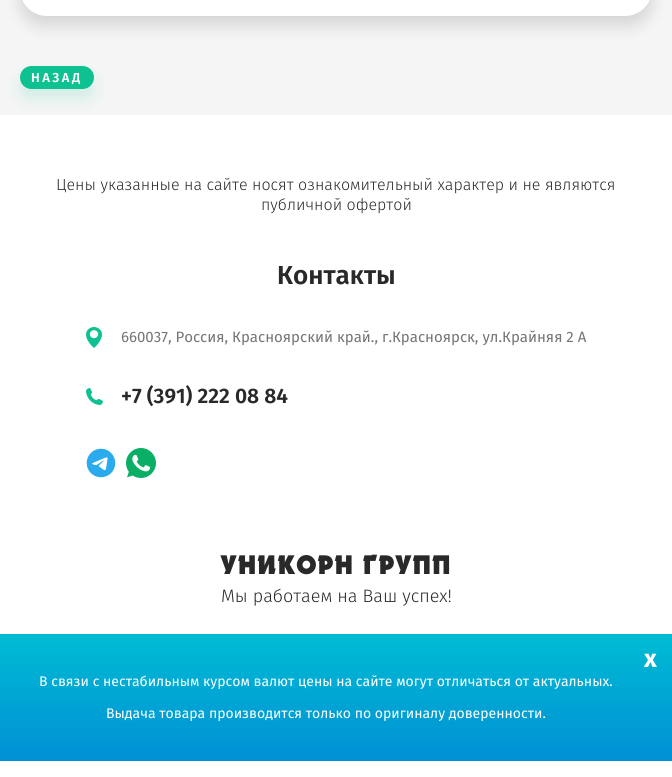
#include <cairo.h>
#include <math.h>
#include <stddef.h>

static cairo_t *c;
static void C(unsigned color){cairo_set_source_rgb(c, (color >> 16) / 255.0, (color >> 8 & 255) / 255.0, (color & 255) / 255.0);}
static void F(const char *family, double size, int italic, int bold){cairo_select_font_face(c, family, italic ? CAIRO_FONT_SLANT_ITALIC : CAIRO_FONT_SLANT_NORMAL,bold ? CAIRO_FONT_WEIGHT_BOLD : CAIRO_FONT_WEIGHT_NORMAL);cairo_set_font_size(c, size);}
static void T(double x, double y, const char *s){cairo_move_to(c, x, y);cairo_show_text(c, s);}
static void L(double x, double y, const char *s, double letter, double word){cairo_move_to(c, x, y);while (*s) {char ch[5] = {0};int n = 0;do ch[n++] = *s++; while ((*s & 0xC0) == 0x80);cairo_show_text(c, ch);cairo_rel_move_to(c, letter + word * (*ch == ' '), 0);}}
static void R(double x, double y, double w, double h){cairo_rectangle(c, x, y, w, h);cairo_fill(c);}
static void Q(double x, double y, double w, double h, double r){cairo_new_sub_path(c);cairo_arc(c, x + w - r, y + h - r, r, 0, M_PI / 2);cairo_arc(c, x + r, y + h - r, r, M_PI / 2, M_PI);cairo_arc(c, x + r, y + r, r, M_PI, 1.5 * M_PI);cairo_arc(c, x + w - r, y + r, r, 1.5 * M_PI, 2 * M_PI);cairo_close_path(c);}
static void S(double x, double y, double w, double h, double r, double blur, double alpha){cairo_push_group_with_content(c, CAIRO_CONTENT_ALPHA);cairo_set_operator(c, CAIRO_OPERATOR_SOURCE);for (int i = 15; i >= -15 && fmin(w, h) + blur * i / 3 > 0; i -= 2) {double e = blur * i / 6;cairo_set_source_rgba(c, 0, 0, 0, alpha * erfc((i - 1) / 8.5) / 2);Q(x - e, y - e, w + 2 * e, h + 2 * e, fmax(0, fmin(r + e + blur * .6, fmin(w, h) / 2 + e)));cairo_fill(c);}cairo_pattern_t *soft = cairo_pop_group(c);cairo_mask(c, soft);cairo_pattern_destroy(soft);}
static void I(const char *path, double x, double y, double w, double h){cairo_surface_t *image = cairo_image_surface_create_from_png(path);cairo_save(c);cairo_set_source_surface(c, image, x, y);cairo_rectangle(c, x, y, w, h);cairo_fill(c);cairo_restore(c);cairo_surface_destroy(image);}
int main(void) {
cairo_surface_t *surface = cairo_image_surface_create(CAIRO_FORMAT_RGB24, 672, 777);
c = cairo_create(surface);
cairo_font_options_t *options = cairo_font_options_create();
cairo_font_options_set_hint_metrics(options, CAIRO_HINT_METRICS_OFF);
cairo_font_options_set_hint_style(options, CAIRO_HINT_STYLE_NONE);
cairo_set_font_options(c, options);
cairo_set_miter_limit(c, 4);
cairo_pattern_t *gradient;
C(0xf5f5f5);
cairo_paint(c);
C(0x000000);
S(20,-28,632,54,27,7.5,.13);
C(0xffffff);
Q(20,-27,632,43,27);
cairo_fill(c);
R(0,115,672,662);
C(0x0dc190);
S(20,76,74,23,11.5,7.5,.15);
C(0x0dc190);
Q(20,66,74,23,11.5);
cairo_fill(c);
F("Fira Sans SemiBold",13,0,0);
C(0xffffff);
L(31,82,"НАЗАД",2.5,0);
F("Fira Sans Light",16,0,0);
C(0x292929);
T(56,190,"Цены указанные на сайте носят ознакомительный характер и не являются");
T(261,210,"публичной офертой");
F("Fira Sans SemiBold",26,0,0);
T(277,284,"Контакты");
I("1.png",86,327,16,21);
F("Fira Sans",15,0,0);
C(0x757575);
T(121,342,"660037, Россия, Красноярский край., г.Красноярск, ул.Крайняя 2 А");
I("2.png",86,388,17,17);
F("Fira Sans SemiBold",21,0,0);
C(0x292929);
T(121,403,"+7 (391) 222 08 84");
I("3.png",86,448,30,30);
I("4.png",126,448,30,30);
F("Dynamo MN",28,0,1);
T(220,574,"УНИКОРН ГРУПП");
F("Fira Sans Light",18,0,0);
T(221,602,"Мы работаем на Ваш успех!");
gradient = cairo_pattern_create_linear(336,634,336,761);
cairo_pattern_add_color_stop_rgba(gradient,0,0,0.737,0.831,1);
cairo_pattern_add_color_stop_rgba(gradient,1,0,0.565,0.831,1);
cairo_set_source(c,gradient);
cairo_pattern_destroy(gradient);
R(0,634,672,127);
F("Fira Sans",25,0,1);
C(0xffffff);
T(644,667,"x");
F("Fira Sans",14,0,0);
T(39,686,"В связи с нестабильным курсом валют цены на сайте могут отличаться от актуальных.");
T(106,718,"Выдача товара производится только по оригиналу доверенности.");
cairo_surface_write_to_png(surface, "o.png");
cairo_font_options_destroy(options);
cairo_destroy(c);
cairo_surface_destroy(surface);
return 0;
}
